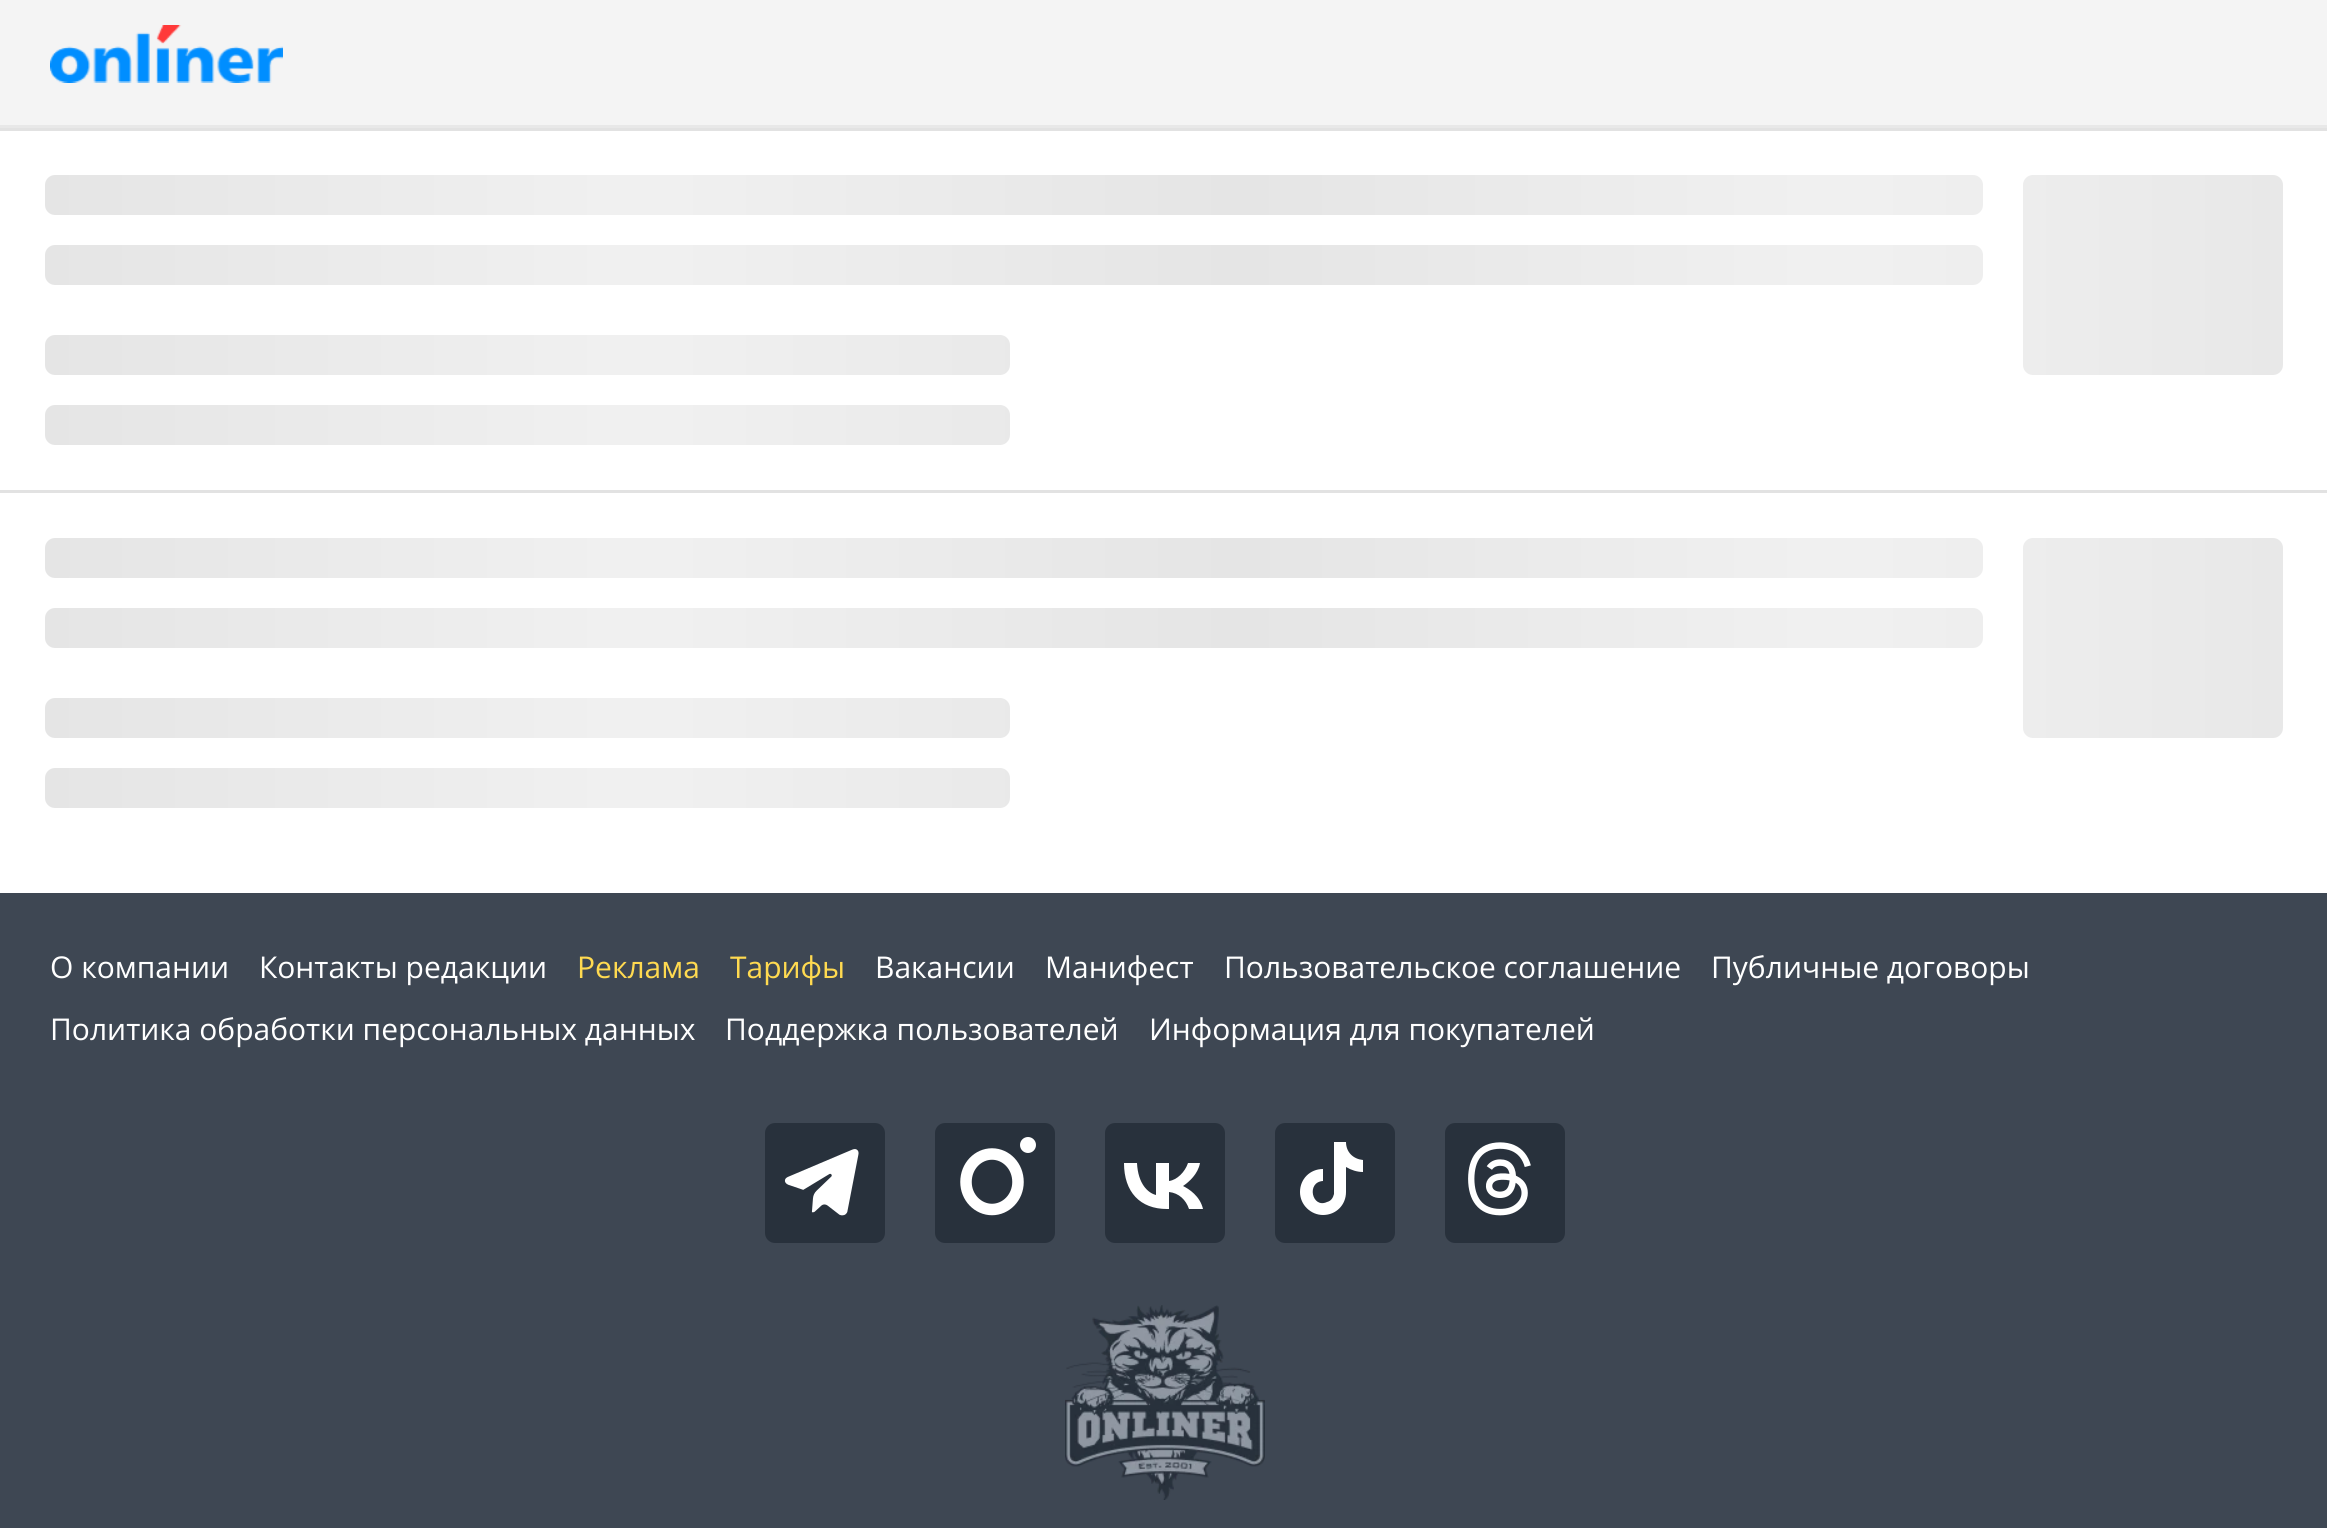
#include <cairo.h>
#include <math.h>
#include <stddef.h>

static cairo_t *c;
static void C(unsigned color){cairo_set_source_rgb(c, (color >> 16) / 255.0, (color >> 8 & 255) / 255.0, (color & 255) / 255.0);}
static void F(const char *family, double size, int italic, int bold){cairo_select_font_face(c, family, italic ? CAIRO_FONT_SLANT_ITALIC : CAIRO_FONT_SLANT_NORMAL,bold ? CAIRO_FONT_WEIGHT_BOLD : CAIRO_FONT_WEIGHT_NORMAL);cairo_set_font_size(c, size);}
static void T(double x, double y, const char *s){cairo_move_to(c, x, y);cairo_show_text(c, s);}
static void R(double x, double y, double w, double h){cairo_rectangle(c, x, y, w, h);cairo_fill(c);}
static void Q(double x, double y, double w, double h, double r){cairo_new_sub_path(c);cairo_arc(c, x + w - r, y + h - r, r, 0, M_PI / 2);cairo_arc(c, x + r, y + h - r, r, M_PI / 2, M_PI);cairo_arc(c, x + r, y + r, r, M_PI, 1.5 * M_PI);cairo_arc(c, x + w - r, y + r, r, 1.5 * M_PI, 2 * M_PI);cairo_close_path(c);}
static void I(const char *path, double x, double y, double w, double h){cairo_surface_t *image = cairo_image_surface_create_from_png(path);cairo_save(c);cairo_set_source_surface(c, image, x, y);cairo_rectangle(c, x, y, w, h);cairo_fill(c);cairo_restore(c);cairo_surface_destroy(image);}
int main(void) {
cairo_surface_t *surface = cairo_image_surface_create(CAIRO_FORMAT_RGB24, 2327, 1528);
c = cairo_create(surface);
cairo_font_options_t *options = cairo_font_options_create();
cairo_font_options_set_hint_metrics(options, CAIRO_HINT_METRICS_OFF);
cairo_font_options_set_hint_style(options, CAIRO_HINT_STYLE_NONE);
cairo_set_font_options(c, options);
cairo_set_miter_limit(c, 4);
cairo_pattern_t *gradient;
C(0x3e4753);
cairo_paint(c);
C(0xf4f4f4);
R(0,0,2327,125);
C(0xe8e8e8);
R(0,125,2327,3);
I("1.png",50,25,233,58);
C(0xffffff);
R(0,131,2327,762);
C(0xe2e2e2);
R(0,128,2327,3);
Q(45,175,1938,40,10);
cairo_fill(c);
Q(45,245,1938,40,10);
cairo_fill(c);
Q(2023,175,260,200,10);
cairo_fill(c);
Q(45,335,965,40,10);
cairo_fill(c);
Q(45,405,965,40,10);
cairo_fill(c);
gradient = cairo_pattern_create_linear(40,310,1240,310);
cairo_pattern_add_color_stop_rgba(gradient,0,1,1,1,.1);
cairo_pattern_add_color_stop_rgba(gradient,.5,1,1,1,.5);
cairo_pattern_add_color_stop_rgba(gradient,1,1,1,1,.1);
cairo_set_source(c,gradient);
cairo_pattern_destroy(gradient);
R(45,175,1195,270);
gradient = cairo_pattern_create_linear(1240,310,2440,310);
cairo_pattern_add_color_stop_rgba(gradient,0,1,1,1,.1);
cairo_pattern_add_color_stop_rgba(gradient,.5,1,1,1,.5);
cairo_pattern_add_color_stop_rgba(gradient,1,1,1,1,.1);
cairo_set_source(c,gradient);
cairo_pattern_destroy(gradient);
R(1240,175,1043,200);
C(0xe2e2e2);
R(0,490,2327,3);
Q(45,538,1938,40,10);
cairo_fill(c);
Q(45,608,1938,40,10);
cairo_fill(c);
Q(2023,538,260,200,10);
cairo_fill(c);
Q(45,698,965,40,10);
cairo_fill(c);
Q(45,768,965,40,10);
cairo_fill(c);
gradient = cairo_pattern_create_linear(40,672,1240,673);
cairo_pattern_add_color_stop_rgba(gradient,0,1,1,1,.1);
cairo_pattern_add_color_stop_rgba(gradient,.5,1,1,1,.5);
cairo_pattern_add_color_stop_rgba(gradient,1,1,1,1,.1);
cairo_set_source(c,gradient);
cairo_pattern_destroy(gradient);
R(45,538,1195,270);
gradient = cairo_pattern_create_linear(1240,672,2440,673);
cairo_pattern_add_color_stop_rgba(gradient,0,1,1,1,.1);
cairo_pattern_add_color_stop_rgba(gradient,.5,1,1,1,.5);
cairo_pattern_add_color_stop_rgba(gradient,1,1,1,1,.1);
cairo_set_source(c,gradient);
cairo_pattern_destroy(gradient);
R(1240,538,1043,200);
F("Open Sans",30,0,0);
C(0xffffff);
T(50,978,"О компании");
T(259,978,"Контакты редакции");
C(0xffda50);
T(577,978,"Реклама");
T(730,978,"Тарифы");
C(0xffffff);
T(875,978,"Вакансии");
T(1045,978,"Манифест");
T(1224,978,"Пользовательское соглашение");
T(1711,978,"Публичные договоры");
T(50,1040,"Политика обработки персональных данных");
T(725,1040,"Поддержка пользователей");
T(1149,1040,"Информация для покупателей");
C(0x28313c);
Q(765,1123,120,120,10);
cairo_fill(c);
I("2.png",784,1149,75,67);
Q(935,1123,120,120,10);
cairo_fill(c);
cairo_new_path(c);
cairo_move_to(c,992,1154);
cairo_curve_to(c,1006,1154,1018,1166,1018,1182);
cairo_curve_to(c,1018,1197.5,1006,1209.5,992,1209.5);
cairo_curve_to(c,978,1209.5,966,1197.5,966,1182);
cairo_curve_to(c,966,1166,978,1154,992,1154);
cairo_close_path(c);
C(0xffffff);
cairo_set_line_width(c,11.5);
cairo_stroke(c);
cairo_arc(c,1028,1145,8,0,2 * M_PI);
cairo_fill(c);
C(0x28313c);
Q(1105,1123,120,120,10);
cairo_fill(c);
C(0xffffff);
cairo_new_path(c);
cairo_move_to(c,1167,1209);
cairo_curve_to(c,1140,1209,1124,1192,1124,1163);
cairo_line_to(c,1137,1163);
cairo_curve_to(c,1138,1184,1148,1193,1156,1195);
cairo_line_to(c,1156,1163);
cairo_line_to(c,1169,1163);
cairo_line_to(c,1169,1181);
cairo_curve_to(c,1177,1180,1185,1172,1188,1163);
cairo_line_to(c,1200,1163);
cairo_curve_to(c,1198,1174,1189,1182,1183,1186);
cairo_curve_to(c,1189,1189,1200,1196,1203,1209);
cairo_line_to(c,1189,1209);
cairo_curve_to(c,1186,1200,1179,1193,1169,1192);
cairo_line_to(c,1169,1209);
cairo_close_path(c);
cairo_fill(c);
C(0x28313c);
Q(1275,1123,120,120,10);
cairo_fill(c);
C(0xffffff);
cairo_new_path(c);
cairo_move_to(c,1346,1142);
cairo_line_to(c,1334,1142);
cairo_line_to(c,1334,1194);
cairo_curve_to(c,1333,1198,1331,1201,1327,1202);
cairo_curve_to(c,1312,1209,1306,1182,1323,1181);
cairo_line_to(c,1323,1169);
cairo_curve_to(c,1310,1169,1300,1179,1300,1192);
cairo_curve_to(c,1300,1205,1311,1215,1323,1215);
cairo_curve_to(c,1336,1215,1346,1205,1346,1192);
cairo_line_to(c,1346,1167);
cairo_curve_to(c,1351,1170,1357,1172,1363,1172);
cairo_line_to(c,1363,1160);
cairo_curve_to(c,1353,1159,1346,1152,1346,1142);
cairo_close_path(c);
cairo_fill(c);
C(0x28313c);
Q(1445,1123,120,120,10);
cairo_fill(c);
I("3.png",1468,1142,63,74);
I("4.png",1065,1305,200,195);
cairo_surface_write_to_png(surface, "o.png");
cairo_font_options_destroy(options);
cairo_destroy(c);
cairo_surface_destroy(surface);
return 0;
}
